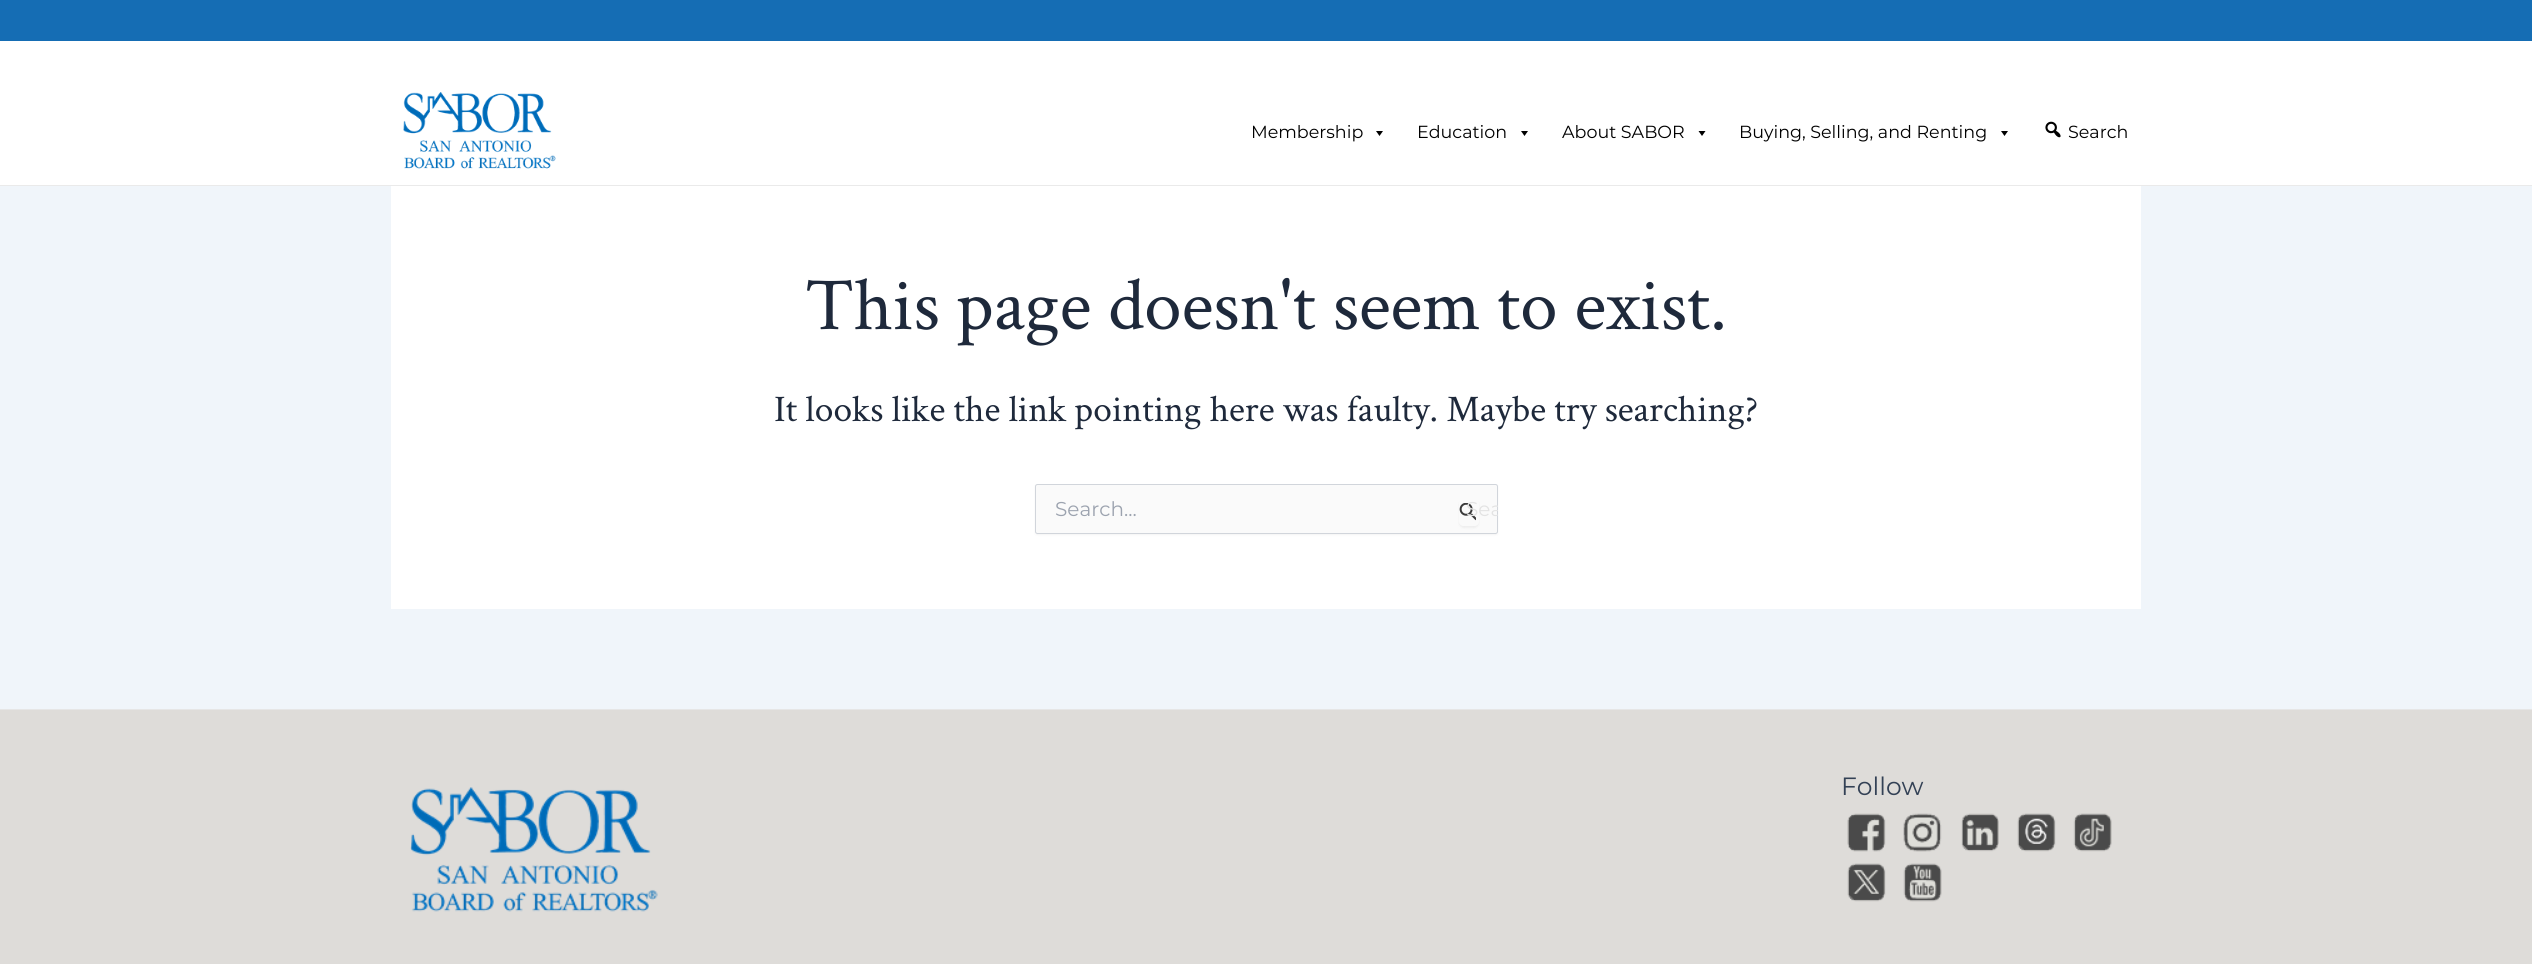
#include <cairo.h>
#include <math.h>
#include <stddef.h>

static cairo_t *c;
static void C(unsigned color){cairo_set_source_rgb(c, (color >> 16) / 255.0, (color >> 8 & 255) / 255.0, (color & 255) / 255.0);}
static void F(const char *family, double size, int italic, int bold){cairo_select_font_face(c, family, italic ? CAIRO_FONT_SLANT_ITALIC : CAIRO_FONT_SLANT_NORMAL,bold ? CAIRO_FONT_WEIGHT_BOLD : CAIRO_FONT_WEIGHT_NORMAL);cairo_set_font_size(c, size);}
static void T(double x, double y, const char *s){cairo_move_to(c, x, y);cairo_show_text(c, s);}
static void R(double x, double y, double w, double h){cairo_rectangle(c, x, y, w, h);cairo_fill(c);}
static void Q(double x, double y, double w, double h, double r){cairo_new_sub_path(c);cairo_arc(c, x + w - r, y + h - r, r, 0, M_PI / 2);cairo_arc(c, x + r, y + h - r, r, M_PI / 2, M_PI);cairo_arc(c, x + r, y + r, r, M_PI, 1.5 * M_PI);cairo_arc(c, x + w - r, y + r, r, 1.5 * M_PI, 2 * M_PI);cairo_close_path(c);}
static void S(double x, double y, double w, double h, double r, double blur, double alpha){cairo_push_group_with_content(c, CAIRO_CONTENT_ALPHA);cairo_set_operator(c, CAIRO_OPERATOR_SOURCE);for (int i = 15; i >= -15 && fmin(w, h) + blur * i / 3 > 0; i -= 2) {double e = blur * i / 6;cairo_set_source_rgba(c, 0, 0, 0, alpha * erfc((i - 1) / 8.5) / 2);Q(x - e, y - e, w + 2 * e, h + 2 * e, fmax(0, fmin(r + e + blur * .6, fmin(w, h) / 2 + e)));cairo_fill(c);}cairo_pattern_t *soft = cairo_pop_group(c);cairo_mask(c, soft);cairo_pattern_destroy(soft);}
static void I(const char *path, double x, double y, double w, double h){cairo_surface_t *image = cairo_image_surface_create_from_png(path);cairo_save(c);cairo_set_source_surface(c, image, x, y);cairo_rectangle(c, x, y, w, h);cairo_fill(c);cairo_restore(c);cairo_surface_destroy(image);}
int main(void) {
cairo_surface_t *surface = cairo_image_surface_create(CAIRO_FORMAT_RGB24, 2532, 964);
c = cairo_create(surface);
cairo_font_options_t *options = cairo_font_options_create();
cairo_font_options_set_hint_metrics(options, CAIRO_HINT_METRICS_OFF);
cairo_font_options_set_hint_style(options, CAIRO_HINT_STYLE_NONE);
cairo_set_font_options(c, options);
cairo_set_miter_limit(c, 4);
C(0xf0f5fa);
cairo_paint(c);
C(0x156db4);
R(0,0,2532,41);
C(0xffffff);
R(0,41,2532,144);
C(0xeaeaea);
R(0,185,2532,1);
I("1.png",403,92,153,77);
F("Montserrat Thin",17.5,0,0);
C(0x000000);
T(1251,138,"Membership");
cairo_new_path(c);
cairo_move_to(c,1383,131);
cairo_line_to(c,1379.5,136);
cairo_line_to(c,1376,131);
cairo_close_path(c);
cairo_fill(c);
T(1417,138,"Education");
cairo_new_path(c);
cairo_move_to(c,1528,131);
cairo_line_to(c,1524.5,136);
cairo_line_to(c,1521,131);
cairo_close_path(c);
cairo_fill(c);
T(1562,138,"About SABOR");
cairo_new_path(c);
cairo_move_to(c,1705.5,131);
cairo_line_to(c,1702,136);
cairo_line_to(c,1698.5,131);
cairo_close_path(c);
cairo_fill(c);
T(1739,138,"Buying, Selling, and Renting");
cairo_new_path(c);
cairo_move_to(c,2008,131);
cairo_line_to(c,2004.5,136);
cairo_line_to(c,2001,131);
cairo_close_path(c);
cairo_fill(c);
I("2.png",2045,121,16,17);
T(2068,138,"Search");
C(0xffffff);
R(391,186,1750,423);
F("Crimson Text",75,0,0);
C(0x1e293b);
T(805,329,"This page doesn't seem to exist.");
F("Crimson Text",37.5,0,0);
T(774,421,"It looks like the link pointing here was faulty. Maybe try searching?");
C(0x000000);
S(1035,485,463,50,2.5,1,.05);
C(0xfafafa);
Q(1035.5,484.5,462,49,2);
cairo_fill_preserve(c);
C(0xd1d5db);
cairo_set_line_width(c,1);
cairo_stroke(c);
F("Montserrat Thin",20,0,0);
C(0x9ca3af);
T(1055,516,"Search...");
cairo_save(c);
cairo_set_fill_rule(c,CAIRO_FILL_RULE_EVEN_ODD);
cairo_new_path(c);
cairo_move_to(c,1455,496);
cairo_line_to(c,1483,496);
cairo_line_to(c,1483,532);
cairo_line_to(c,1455,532);
cairo_close_path(c);
cairo_move_to(c,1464,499);
cairo_line_to(c,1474,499);
cairo_curve_to(c,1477,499,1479,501,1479,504);
cairo_line_to(c,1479,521);
cairo_curve_to(c,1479,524,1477,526,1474,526);
cairo_line_to(c,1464,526);
cairo_curve_to(c,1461,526,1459,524,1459,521);
cairo_line_to(c,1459,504);
cairo_curve_to(c,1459,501,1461,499,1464,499);
cairo_close_path(c);
cairo_clip(c);
C(0x000000);
S(1459,500,20,28,5,1,.05);
cairo_restore(c);
I("3.png",1459,503,17,18);
cairo_save(c);
Q(1441,484,57,52,2.5);
cairo_clip(c);
C(0xe3e3e3);
T(1466,516,"Sea");
cairo_restore(c);
C(0xdedcd9);
R(0,710,2532,254);
C(0xe6e6e6);
R(0,709,2532,1);
I("4.png",410,787,248,125);
F("Montserrat Thin",25,0,0);
C(0x334155);
T(1841,795,"Follow");
I("5.png",1847,813,39,39);
I("6.png",1903,813,39,39);
I("7.png",1961,813,38,39);
I("8.png",2017,813,39,39);
I("9.png",2073,813,39,39);
I("10.png",1847,863,39,39);
I("11.png",1903,863,39,39);
cairo_surface_write_to_png(surface, "o.png");
cairo_font_options_destroy(options);
cairo_destroy(c);
cairo_surface_destroy(surface);
return 0;
}
